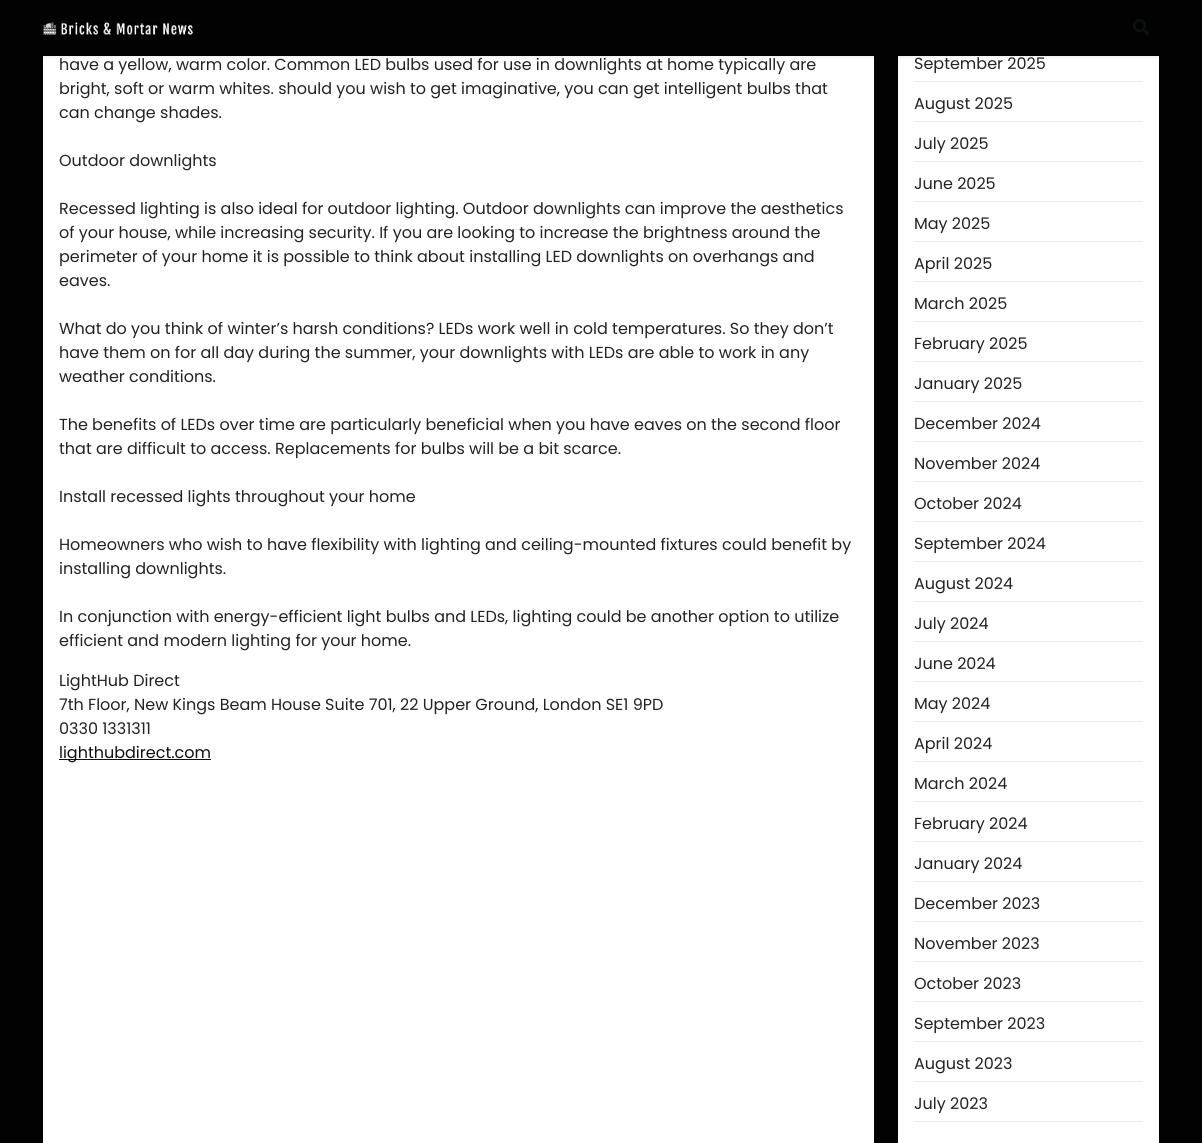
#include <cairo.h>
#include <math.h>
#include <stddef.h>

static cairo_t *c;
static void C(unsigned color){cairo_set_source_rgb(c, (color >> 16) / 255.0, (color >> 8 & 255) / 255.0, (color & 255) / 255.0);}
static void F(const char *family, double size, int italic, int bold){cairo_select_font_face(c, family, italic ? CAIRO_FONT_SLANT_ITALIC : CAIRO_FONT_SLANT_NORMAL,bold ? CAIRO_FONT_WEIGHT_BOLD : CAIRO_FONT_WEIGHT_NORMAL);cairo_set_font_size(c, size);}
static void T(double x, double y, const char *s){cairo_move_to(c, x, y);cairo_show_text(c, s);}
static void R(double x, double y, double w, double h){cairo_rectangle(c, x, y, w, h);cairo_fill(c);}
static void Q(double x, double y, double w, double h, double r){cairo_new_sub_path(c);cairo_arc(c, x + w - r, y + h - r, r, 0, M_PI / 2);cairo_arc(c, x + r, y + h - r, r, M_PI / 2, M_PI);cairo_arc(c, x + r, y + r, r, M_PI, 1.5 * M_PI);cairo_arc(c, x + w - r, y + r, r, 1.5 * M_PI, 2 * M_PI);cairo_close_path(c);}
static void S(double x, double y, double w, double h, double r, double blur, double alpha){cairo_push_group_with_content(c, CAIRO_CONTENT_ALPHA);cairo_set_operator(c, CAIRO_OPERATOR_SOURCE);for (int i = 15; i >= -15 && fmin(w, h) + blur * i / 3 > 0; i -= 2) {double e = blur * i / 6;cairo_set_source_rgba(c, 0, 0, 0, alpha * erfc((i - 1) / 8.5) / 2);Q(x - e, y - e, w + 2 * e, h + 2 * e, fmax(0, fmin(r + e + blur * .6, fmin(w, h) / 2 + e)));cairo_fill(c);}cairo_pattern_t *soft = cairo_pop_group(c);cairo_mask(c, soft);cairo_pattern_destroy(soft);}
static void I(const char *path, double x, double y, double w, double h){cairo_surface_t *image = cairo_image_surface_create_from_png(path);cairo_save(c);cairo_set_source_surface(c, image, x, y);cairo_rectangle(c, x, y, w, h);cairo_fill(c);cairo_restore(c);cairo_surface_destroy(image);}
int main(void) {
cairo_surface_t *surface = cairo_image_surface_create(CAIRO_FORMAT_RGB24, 1202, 1143);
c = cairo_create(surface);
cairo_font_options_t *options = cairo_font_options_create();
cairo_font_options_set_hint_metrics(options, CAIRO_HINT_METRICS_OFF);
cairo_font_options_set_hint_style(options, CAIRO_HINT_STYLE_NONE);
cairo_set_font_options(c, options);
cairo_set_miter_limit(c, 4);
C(0x020202);
cairo_paint(c);
C(0xffffff);
R(43,56,831,1087);
R(898,56,261,1087);
C(0x000000);
S(0,0,1202,56,0,2.5,.12);
I("1.png",43,22,150,13);
I("2.png",1133,19,16,16);
F("Poppins",16,0,0);
C(0x222222);
T(59,70,"have a yellow, warm color. Common LED bulbs used for use in downlights at home typically are");
T(59,94,"bright, soft or warm whites. should you wish to get imaginative, you can get intelligent bulbs that");
T(59,118,"can change shades.");
T(59,166,"Outdoor downlights");
T(59,214,"Recessed lighting is also ideal for outdoor lighting. Outdoor downlights can improve the aesthetics");
T(59,238,"of your house, while increasing security. If you are looking to increase the brightness around the");
T(59,262,"perimeter of your home it is possible to think about installing LED downlights on overhangs and");
T(59,286,"eaves.");
T(59,334,"What do you think of winter’s harsh conditions? LEDs work well in cold temperatures. So they don’t");
T(59,358,"have them on for all day during the summer, your downlights with LEDs are able to work in any");
T(59,382,"weather conditions.");
T(59,430,"The benefits of LEDs over time are particularly beneficial when you have eaves on the second floor");
T(59,454,"that are difficult to access. Replacements for bulbs will be a bit scarce.");
T(59,502,"Install recessed lights throughout your home");
T(59,550,"Homeowners who wish to have flexibility with lighting and ceiling-mounted fixtures could benefit by");
T(59,574,"installing downlights.");
T(59,622,"In conjunction with energy-efficient light bulbs and LEDs, lighting could be another option to utilize");
T(59,646,"efficient and modern lighting for your home.");
T(59,686,"LightHub Direct");
T(59,710,"7th Floor, New Kings Beam House Suite 701, 22 Upper Ground, London SE1 9PD");
T(59,734,"0330 1331311");
C(0x0d1013);
R(59,759,152,1);
T(59,758,"lighthubdirect.com");
C(0xededed);
R(914,81,229,1);
C(0x222222);
T(914,69,"September 2025");
C(0xededed);
R(914,121,229,1);
C(0x222222);
T(914,109,"August 2025");
C(0xededed);
R(914,161,229,1);
C(0x222222);
T(914,149,"July 2025");
C(0xededed);
R(914,201,229,1);
C(0x222222);
T(914,189,"June 2025");
C(0xededed);
R(914,241,229,1);
C(0x222222);
T(914,229,"May 2025");
C(0xededed);
R(914,281,229,1);
C(0x222222);
T(914,269,"April 2025");
C(0xededed);
R(914,321,229,1);
C(0x222222);
T(914,309,"March 2025");
C(0xededed);
R(914,361,229,1);
C(0x222222);
T(914,349,"February 2025");
C(0xededed);
R(914,401,229,1);
C(0x222222);
T(914,389,"January 2025");
C(0xededed);
R(914,441,229,1);
C(0x222222);
T(914,429,"December 2024");
C(0xededed);
R(914,481,229,1);
C(0x222222);
T(914,469,"November 2024");
C(0xededed);
R(914,521,229,1);
C(0x222222);
T(914,509,"October 2024");
C(0xededed);
R(914,561,229,1);
C(0x222222);
T(914,549,"September 2024");
C(0xededed);
R(914,601,229,1);
C(0x222222);
T(914,589,"August 2024");
C(0xededed);
R(914,641,229,1);
C(0x222222);
T(914,629,"July 2024");
C(0xededed);
R(914,681,229,1);
C(0x222222);
T(914,669,"June 2024");
C(0xededed);
R(914,721,229,1);
C(0x222222);
T(914,709,"May 2024");
C(0xededed);
R(914,761,229,1);
C(0x222222);
T(914,749,"April 2024");
C(0xededed);
R(914,801,229,1);
C(0x222222);
T(914,789,"March 2024");
C(0xededed);
R(914,841,229,1);
C(0x222222);
T(914,829,"February 2024");
C(0xededed);
R(914,881,229,1);
C(0x222222);
T(914,869,"January 2024");
C(0xededed);
R(914,921,229,1);
C(0x222222);
T(914,909,"December 2023");
C(0xededed);
R(914,961,229,1);
C(0x222222);
T(914,949,"November 2023");
C(0xededed);
R(914,1001,229,1);
C(0x222222);
T(914,989,"October 2023");
C(0xededed);
R(914,1041,229,1);
C(0x222222);
T(914,1029,"September 2023");
C(0xededed);
R(914,1081,229,1);
C(0x222222);
T(914,1069,"August 2023");
C(0xededed);
R(914,1121,229,1);
C(0x222222);
T(914,1109,"July 2023");
cairo_surface_write_to_png(surface, "o.png");
cairo_font_options_destroy(options);
cairo_destroy(c);
cairo_surface_destroy(surface);
return 0;
}
